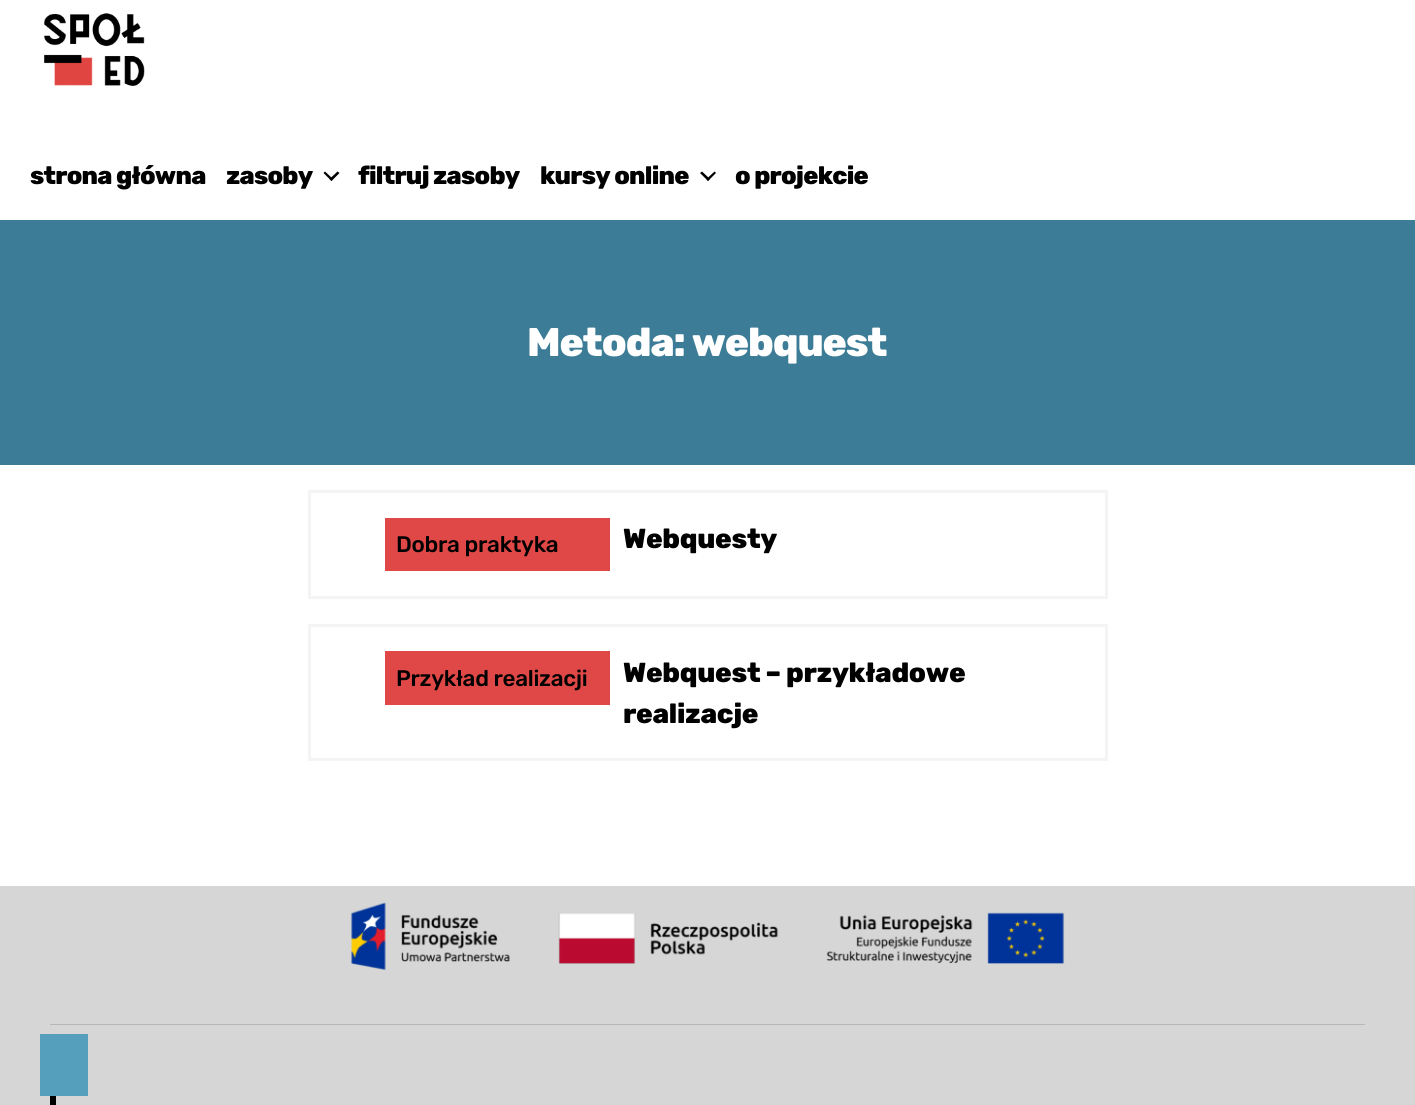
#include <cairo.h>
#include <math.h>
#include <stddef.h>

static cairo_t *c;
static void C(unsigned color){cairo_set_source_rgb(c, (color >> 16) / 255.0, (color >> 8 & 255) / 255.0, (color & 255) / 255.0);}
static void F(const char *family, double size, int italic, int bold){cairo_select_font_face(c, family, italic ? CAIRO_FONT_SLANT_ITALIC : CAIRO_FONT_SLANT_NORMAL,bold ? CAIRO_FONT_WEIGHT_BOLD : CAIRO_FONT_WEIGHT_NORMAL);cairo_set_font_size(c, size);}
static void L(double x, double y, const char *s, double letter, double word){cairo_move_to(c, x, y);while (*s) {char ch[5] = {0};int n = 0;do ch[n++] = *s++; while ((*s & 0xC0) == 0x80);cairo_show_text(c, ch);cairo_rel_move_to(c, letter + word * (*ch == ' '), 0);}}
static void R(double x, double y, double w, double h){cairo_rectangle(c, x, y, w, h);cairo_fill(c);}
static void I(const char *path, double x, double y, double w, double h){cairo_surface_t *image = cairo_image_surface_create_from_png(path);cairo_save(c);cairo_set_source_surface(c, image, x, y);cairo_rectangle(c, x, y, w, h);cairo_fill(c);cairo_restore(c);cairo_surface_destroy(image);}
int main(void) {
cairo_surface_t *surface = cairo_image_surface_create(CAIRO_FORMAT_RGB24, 1415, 1105);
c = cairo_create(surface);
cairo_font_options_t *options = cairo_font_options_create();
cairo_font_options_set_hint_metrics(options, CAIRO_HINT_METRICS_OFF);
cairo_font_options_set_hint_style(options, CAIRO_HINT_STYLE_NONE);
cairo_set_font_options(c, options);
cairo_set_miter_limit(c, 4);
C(0xffffff);
cairo_paint(c);
I("1.png",44,13,101,73);
F("Rubik ExtraBold",25,0,0);
C(0x000000);
L(30,184,"strona główna",-.75,0);
L(226,184,"zasoby",-.75,0);
cairo_new_path(c);
cairo_move_to(c,323.5,173);
cairo_line_to(c,325,171.5);
cairo_line_to(c,333,179);
cairo_line_to(c,331.5,181);
cairo_close_path(c);
cairo_fill(c);
cairo_new_path(c);
cairo_move_to(c,329.5,179);
cairo_line_to(c,337.5,171.5);
cairo_line_to(c,339.5,173);
cairo_line_to(c,331.5,181);
cairo_close_path(c);
cairo_fill(c);
L(358,184,"filtruj zasoby",-.75,0);
L(540,184,"kursy online",-.75,0);
cairo_new_path(c);
cairo_move_to(c,700,173);
cairo_line_to(c,702,171.5);
cairo_line_to(c,710,179);
cairo_line_to(c,708,181);
cairo_close_path(c);
cairo_fill(c);
cairo_new_path(c);
cairo_move_to(c,706.5,179);
cairo_line_to(c,714.5,171.5);
cairo_line_to(c,716,173);
cairo_line_to(c,708,181);
cairo_close_path(c);
cairo_fill(c);
L(735,184,"o projekcie",-.75,0);
C(0x3c7c96);
R(0,220,1415,245);
F("Rubik ExtraBold",40,0,0);
C(0xffffff);
L(527,356,"Metoda: webquest",-1.1,0);
cairo_rectangle(c,309.5,491.5,797,106);
C(0xf4f4f4);
cairo_set_line_width(c,3);
cairo_stroke(c);
C(0xdf4847);
R(385,518,225,53);
F("Rubik Medium",22.5,0,0);
C(0x000000);
L(396,552,"Dobra praktyka",-.3,0);
F("Rubik ExtraBold",27.5,0,0);
L(623,548,"Webquesty",-.3,0);
cairo_rectangle(c,309.5,625.5,797,134);
C(0xf4f4f4);
cairo_stroke(c);
C(0xdf4847);
R(385,651,225,54);
F("Rubik Medium",22.5,0,0);
C(0x000000);
L(396,686,"Przykład realizacji",-.3,0);
F("Rubik ExtraBold",27.5,0,0);
L(623,682,"Webquest – przykładowe",-.3,0);
L(623,723,"realizacje",-.3,0);
C(0xd6d6d6);
R(0,886,1415,219);
C(0xb7b7b7);
R(50,1024,1315,1);
I("2.png",350,902,715,68);
C(0x000000);
R(50,1096,6,9);
C(0x559ebc);
R(40,1034,48,62);
cairo_surface_write_to_png(surface, "o.png");
cairo_font_options_destroy(options);
cairo_destroy(c);
cairo_surface_destroy(surface);
return 0;
}
